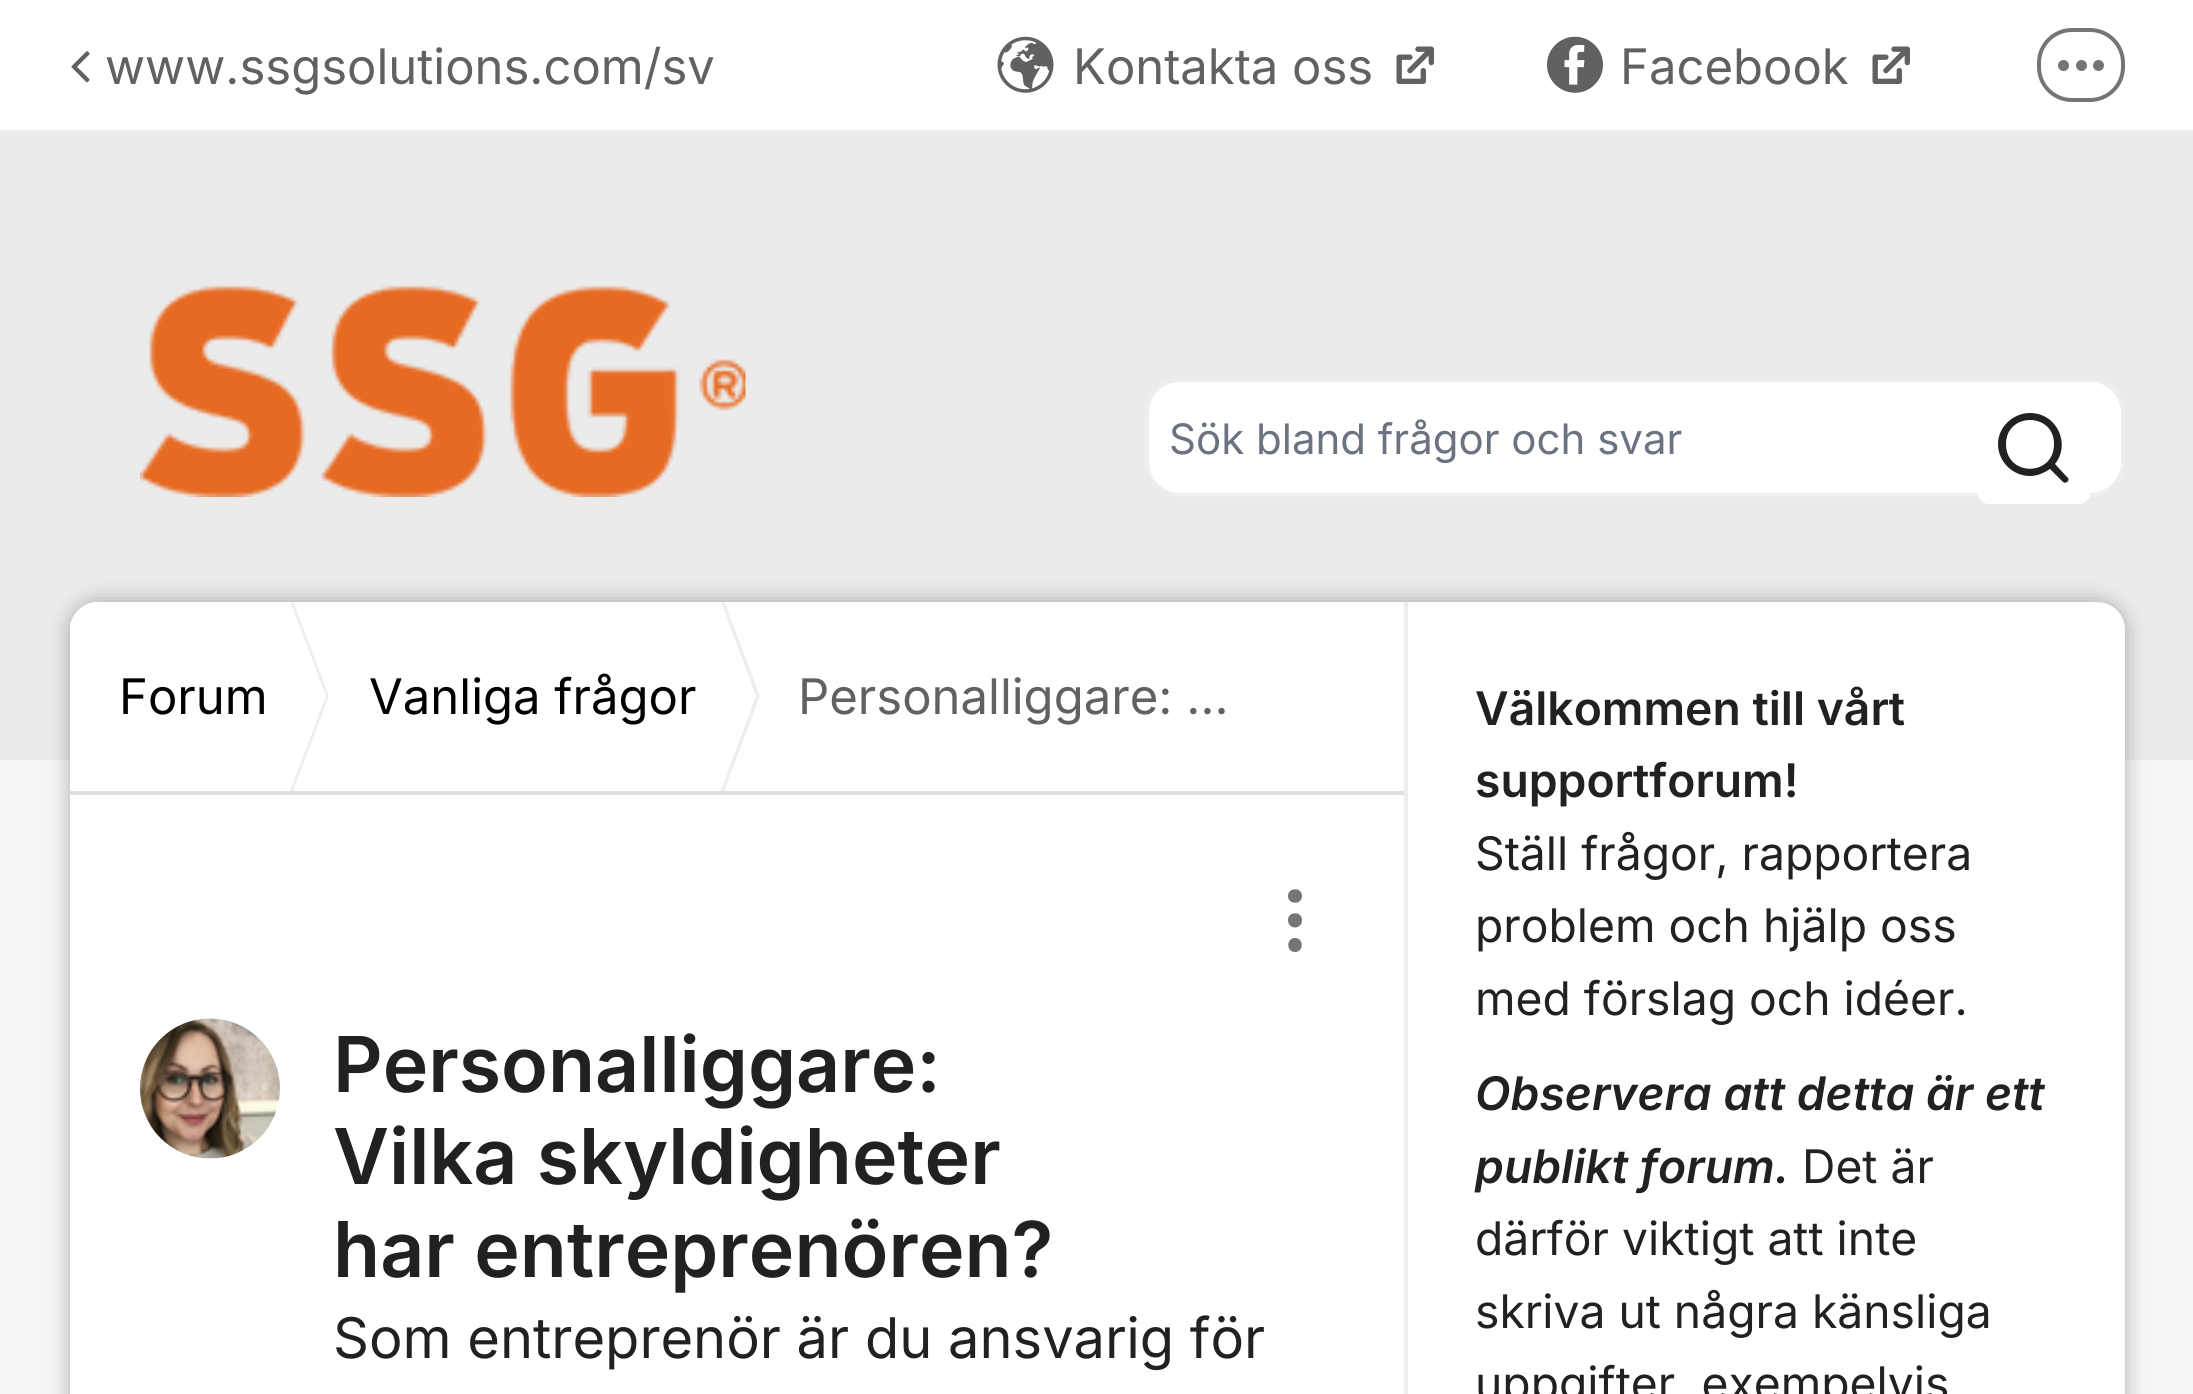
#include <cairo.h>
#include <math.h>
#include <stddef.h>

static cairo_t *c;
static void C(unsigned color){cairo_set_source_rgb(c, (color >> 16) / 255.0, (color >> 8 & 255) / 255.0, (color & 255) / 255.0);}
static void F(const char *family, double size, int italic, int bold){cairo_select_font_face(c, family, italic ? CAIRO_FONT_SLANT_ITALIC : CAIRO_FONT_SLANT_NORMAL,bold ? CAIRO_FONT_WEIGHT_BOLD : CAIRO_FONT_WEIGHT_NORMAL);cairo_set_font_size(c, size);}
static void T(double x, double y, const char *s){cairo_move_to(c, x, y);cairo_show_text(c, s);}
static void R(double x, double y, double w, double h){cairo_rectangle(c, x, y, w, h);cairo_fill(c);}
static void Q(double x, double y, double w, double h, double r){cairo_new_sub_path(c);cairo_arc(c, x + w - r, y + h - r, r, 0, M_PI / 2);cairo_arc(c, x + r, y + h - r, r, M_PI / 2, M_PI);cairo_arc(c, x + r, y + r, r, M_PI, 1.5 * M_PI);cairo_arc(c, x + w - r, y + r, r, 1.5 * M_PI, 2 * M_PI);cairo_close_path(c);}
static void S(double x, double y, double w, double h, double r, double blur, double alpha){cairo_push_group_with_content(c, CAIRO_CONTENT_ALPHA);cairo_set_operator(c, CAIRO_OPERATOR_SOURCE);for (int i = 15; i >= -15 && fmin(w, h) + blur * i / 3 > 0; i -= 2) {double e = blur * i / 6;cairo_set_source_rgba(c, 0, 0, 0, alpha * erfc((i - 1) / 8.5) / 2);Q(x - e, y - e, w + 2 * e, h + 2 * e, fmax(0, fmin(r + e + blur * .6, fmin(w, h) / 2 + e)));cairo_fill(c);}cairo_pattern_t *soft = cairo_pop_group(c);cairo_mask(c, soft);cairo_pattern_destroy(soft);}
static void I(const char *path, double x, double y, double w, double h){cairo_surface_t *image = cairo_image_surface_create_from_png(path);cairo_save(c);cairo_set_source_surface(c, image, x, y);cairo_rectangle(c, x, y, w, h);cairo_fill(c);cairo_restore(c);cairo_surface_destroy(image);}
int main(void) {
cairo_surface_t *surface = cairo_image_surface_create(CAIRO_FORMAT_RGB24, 2193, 1394);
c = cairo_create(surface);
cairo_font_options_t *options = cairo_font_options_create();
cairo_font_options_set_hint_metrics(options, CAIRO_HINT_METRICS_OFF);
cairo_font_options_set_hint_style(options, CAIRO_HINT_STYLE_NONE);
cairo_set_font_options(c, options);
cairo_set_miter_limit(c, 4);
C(0xf6f6f6);
cairo_paint(c);
C(0xffffff);
R(0,0,2193,130);
I("1.png",71,51,19,32);
F("Inter",49,0,0);
C(0x616161);
T(105,84,"www.ssgsolutions.com/sv");
I("2.png",997,36,57,57);
T(1073,84,"Kontakta oss");
I("3.png",1396,46,38,38);
I("4.png",1547,36,56,57);
T(1620,84,"Facebook");
I("3.png",1872,46,38,38);
Q(2039,30,84,70,33);
C(0x757575);
cairo_set_line_width(c,4);
cairo_stroke(c);
cairo_arc(c,2063.5,65.5,5.5,0,2 * M_PI);
cairo_fill(c);
cairo_arc(c,2081.5,65.5,5.5,0,2 * M_PI);
cairo_fill(c);
cairo_arc(c,2098.5,65.5,5.5,0,2 * M_PI);
cairo_fill(c);
C(0xebebeb);
R(0,130,2193,630);
I("5.png",140,285,606,212);
C(0xffffff);
Q(1147,380,976,115,33);
cairo_fill_preserve(c);
C(0xeeeeee);
cairo_stroke(c);
F("Inter",42,0,0);
C(0x6b7280);
T(1169,454,"Sök bland frågor och svar");
C(0xffffff);
Q(1978,392,112,112,11);
cairo_fill(c);
C(0x212121);
cairo_set_fill_rule(c,CAIRO_FILL_RULE_EVEN_ODD);
cairo_new_path(c);
cairo_move_to(c,2006,444);
cairo_curve_to(c,2006,412,2054,412,2054,444);
cairo_curve_to(c,2054,477,2006,477,2006,444);
cairo_close_path(c);
cairo_move_to(c,2030,413);
cairo_curve_to(c,2013,413,1998,427,1998,444);
cairo_curve_to(c,1998,462,2013,476,2030,476);
cairo_curve_to(c,2037,476,2044,473,2050,469);
cairo_line_to(c,2063,482);
cairo_curve_to(c,2064,483,2066,483,2067,482);
cairo_curve_to(c,2069,481,2069,478,2067,477);
cairo_line_to(c,2055,464);
cairo_curve_to(c,2071,444,2057,413,2030,413);
cairo_close_path(c);
cairo_fill(c);
C(0x000000);
S(70,602,2055,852,28,10.5,.3);
C(0xffffff);
cairo_new_path(c);
cairo_move_to(c,98,602);
cairo_line_to(c,2097,602);
cairo_curve_to(c,2112.5,602,2125,614.5,2125,630);
cairo_line_to(c,2125,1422);
cairo_line_to(c,70,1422);
cairo_line_to(c,70,630);
cairo_curve_to(c,70,614.5,82.5,602,98,602);
cairo_close_path(c);
cairo_fill(c);
Q(70,602,1337,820,28);
cairo_fill(c);
C(0xe0e0e0);
R(70,791,1337,4);
cairo_save(c);
cairo_set_fill_rule(c,CAIRO_FILL_RULE_WINDING);
cairo_rectangle(c,70,602,1337,189);
cairo_clip(c);
C(0xeeeeee);
cairo_new_path(c);
cairo_move_to(c,276,836);
cairo_line_to(c,276,556);
cairo_line_to(c,329,696);
cairo_close_path(c);
cairo_fill(c);
C(0xffffff);
cairo_new_path(c);
cairo_move_to(c,273,836);
cairo_line_to(c,273,556);
cairo_line_to(c,326,696);
cairo_close_path(c);
cairo_fill(c);
cairo_restore(c);
F("Inter",49,0,0);
C(0x000000);
T(119,714,"Forum");
cairo_save(c);
cairo_set_fill_rule(c,CAIRO_FILL_RULE_WINDING);
cairo_rectangle(c,70,602,1337,189);
cairo_clip(c);
C(0xeeeeee);
cairo_new_path(c);
cairo_move_to(c,707,836);
cairo_line_to(c,707,556);
cairo_line_to(c,760,696);
cairo_close_path(c);
cairo_fill(c);
C(0xffffff);
cairo_new_path(c);
cairo_move_to(c,704,836);
cairo_line_to(c,704,556);
cairo_line_to(c,756,696);
cairo_close_path(c);
cairo_fill(c);
cairo_restore(c);
T(369,714,"Vanliga frågor");
C(0x616161);
T(798,714,"Personalliggare: …");
C(0x757575);
cairo_new_path(c);
cairo_move_to(c,1302,896);
cairo_curve_to(c,1302,905,1288,905,1288,896);
cairo_curve_to(c,1288,887,1302,887,1302,896);
cairo_close_path(c);
cairo_move_to(c,1302,920);
cairo_curve_to(c,1302,930,1288,930,1288,920);
cairo_curve_to(c,1288,911,1302,911,1302,920);
cairo_close_path(c);
cairo_move_to(c,1295,952);
cairo_curve_to(c,1304,952,1304,938,1295,938);
cairo_curve_to(c,1286,938,1286,952,1295,952);
cairo_close_path(c);
cairo_fill(c);
I("6.png",140,1018,140,141);
F("Inter SemiBold",77,0,0);
C(0x212121);
T(333,1092,"Personalliggare:");
T(333,1184,"Vilka skyldigheter");
T(333,1277,"har entreprenören?");
F("Inter",56,0,0);
T(333,1358,"Som entreprenör är du ansvarig för");
C(0xeeeeee);
R(1404,602,4,792);
F("Inter SemiBold",46.25,0,0);
C(0x212121);
T(1475,725,"Välkommen till vårt");
T(1475,797,"supportforum!");
F("Inter",46.25,0,0);
T(1475,870,"Ställ frågor, rapportera");
T(1475,942,"problem och hjälp oss");
T(1475,1015,"med förslag och idéer.");
F("Inter SemiBold",46.25,1,0);
T(1475,1110,"Observera att detta är ett");
T(1475,1183,"publikt forum.");
F("Inter",46.25,0,0);
T(1802,1183,"Det är");
T(1475,1255,"därför viktigt att inte");
T(1475,1328,"skriva ut några känsliga");
T(1475,1400,"uppgifter, exempelvis");
cairo_surface_write_to_png(surface, "o.png");
cairo_font_options_destroy(options);
cairo_destroy(c);
cairo_surface_destroy(surface);
return 0;
}
